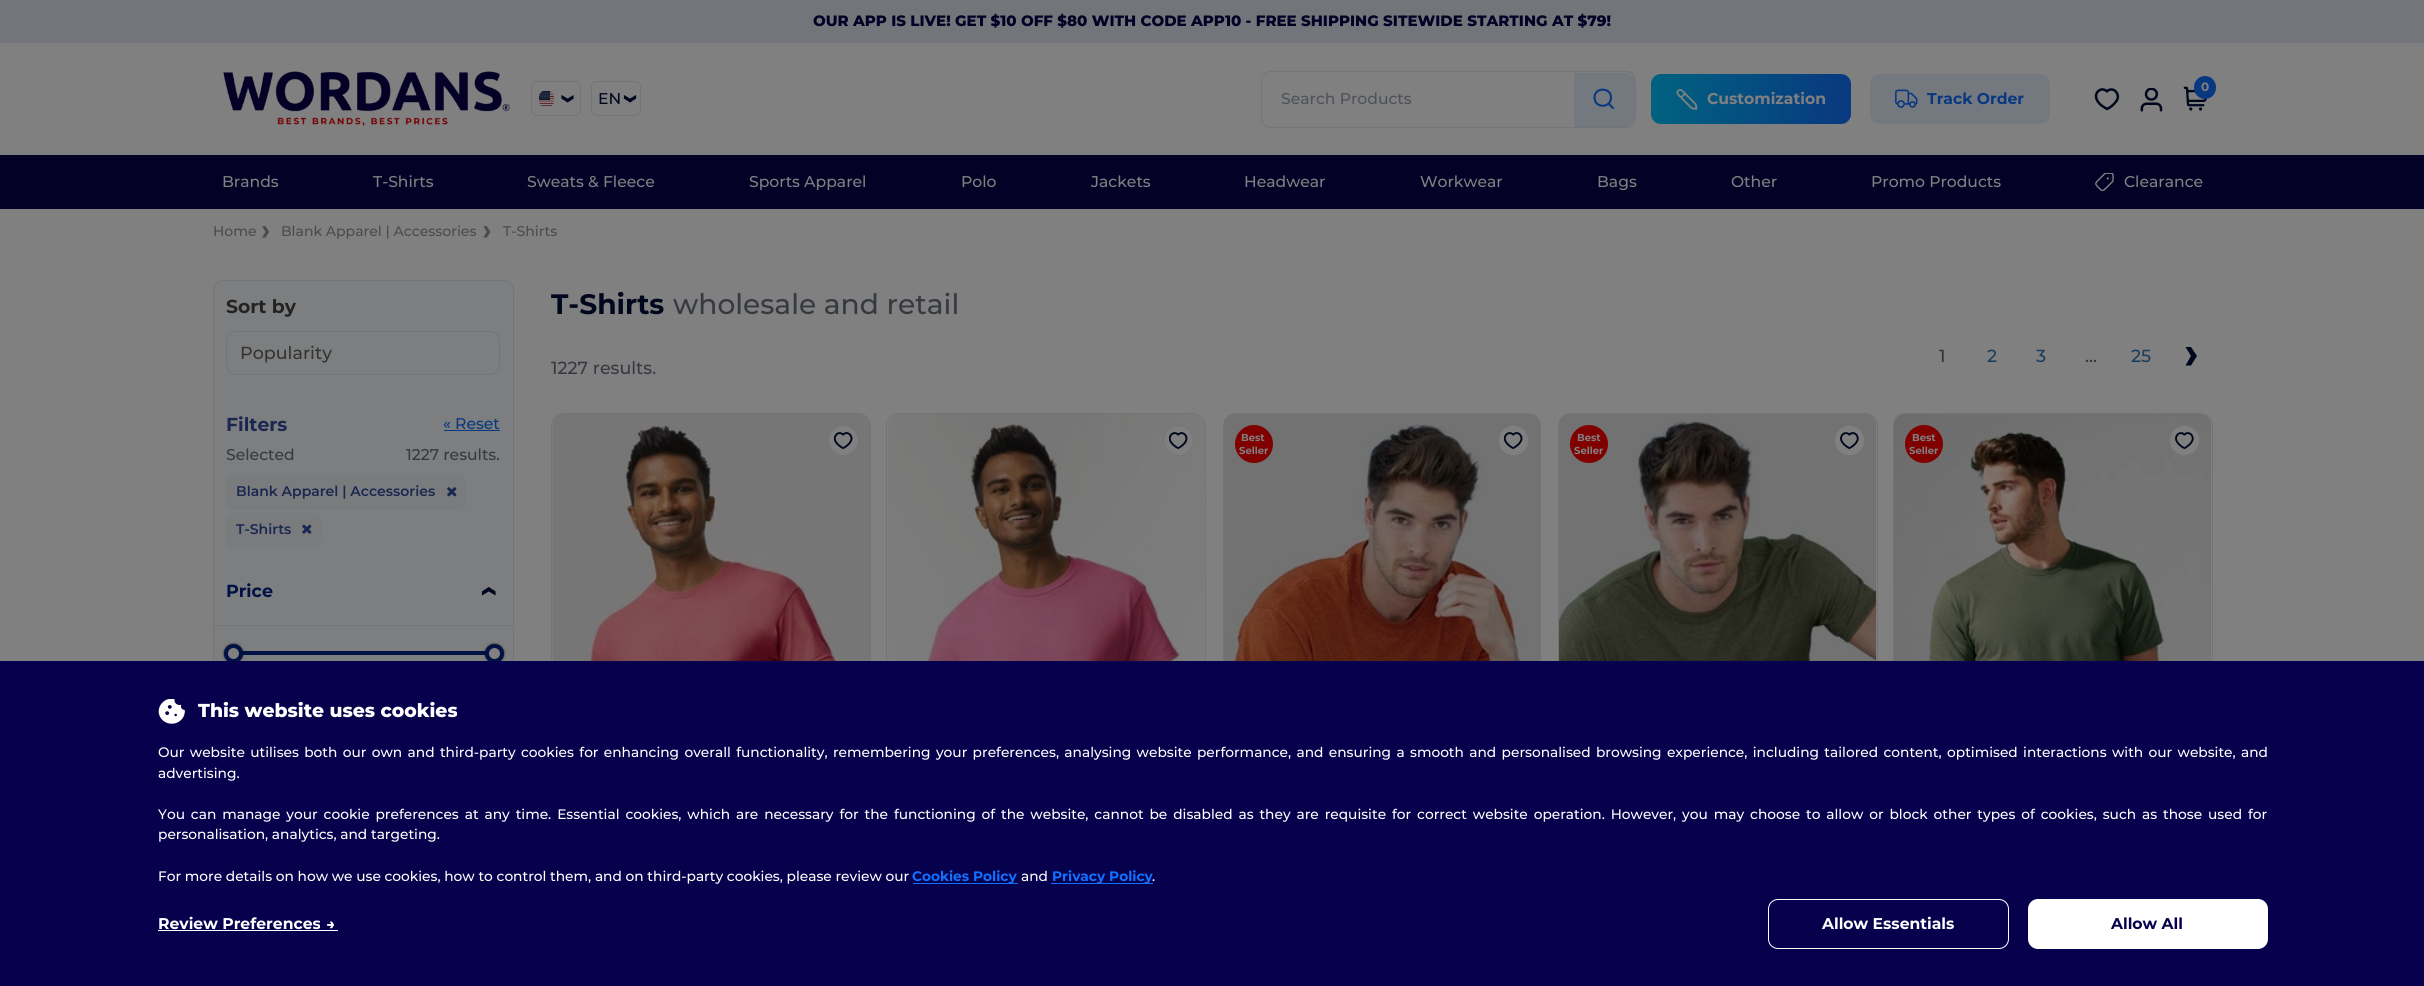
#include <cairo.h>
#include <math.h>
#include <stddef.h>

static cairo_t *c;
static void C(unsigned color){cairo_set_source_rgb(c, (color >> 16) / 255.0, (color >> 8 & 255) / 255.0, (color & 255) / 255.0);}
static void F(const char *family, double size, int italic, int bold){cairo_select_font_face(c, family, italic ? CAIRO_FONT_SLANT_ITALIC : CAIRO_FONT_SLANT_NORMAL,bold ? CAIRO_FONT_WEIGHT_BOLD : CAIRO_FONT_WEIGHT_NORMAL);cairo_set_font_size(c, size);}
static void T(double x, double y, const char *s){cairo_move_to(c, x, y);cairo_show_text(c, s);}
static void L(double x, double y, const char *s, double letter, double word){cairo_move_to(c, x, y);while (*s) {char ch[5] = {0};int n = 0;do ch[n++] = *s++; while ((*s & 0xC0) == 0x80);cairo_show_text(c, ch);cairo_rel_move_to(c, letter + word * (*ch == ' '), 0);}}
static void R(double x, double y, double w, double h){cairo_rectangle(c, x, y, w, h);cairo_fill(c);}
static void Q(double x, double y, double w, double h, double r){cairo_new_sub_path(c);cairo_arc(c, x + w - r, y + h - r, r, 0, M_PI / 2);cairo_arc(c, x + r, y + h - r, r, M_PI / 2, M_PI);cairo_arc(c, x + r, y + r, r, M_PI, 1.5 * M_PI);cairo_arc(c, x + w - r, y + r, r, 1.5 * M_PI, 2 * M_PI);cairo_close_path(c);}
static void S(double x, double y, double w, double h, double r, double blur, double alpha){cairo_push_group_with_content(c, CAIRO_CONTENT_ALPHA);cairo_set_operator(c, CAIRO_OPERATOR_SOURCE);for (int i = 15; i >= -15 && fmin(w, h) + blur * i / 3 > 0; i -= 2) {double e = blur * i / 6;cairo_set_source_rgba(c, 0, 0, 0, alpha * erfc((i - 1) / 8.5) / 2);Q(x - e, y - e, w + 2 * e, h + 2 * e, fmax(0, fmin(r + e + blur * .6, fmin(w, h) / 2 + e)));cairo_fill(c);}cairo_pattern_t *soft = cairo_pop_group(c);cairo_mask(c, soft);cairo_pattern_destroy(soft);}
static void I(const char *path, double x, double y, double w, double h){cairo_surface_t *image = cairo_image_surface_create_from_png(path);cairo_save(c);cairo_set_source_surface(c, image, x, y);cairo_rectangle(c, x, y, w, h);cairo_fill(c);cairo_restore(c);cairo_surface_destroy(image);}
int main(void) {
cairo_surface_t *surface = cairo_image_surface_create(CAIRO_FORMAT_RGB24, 2424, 986);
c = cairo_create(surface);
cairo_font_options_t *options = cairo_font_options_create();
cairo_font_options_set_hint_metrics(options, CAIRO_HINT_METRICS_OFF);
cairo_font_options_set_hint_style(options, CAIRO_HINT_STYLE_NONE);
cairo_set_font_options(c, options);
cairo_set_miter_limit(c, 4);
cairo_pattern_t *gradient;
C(0x808080);
cairo_paint(c);
C(0x73757a);
R(0,0,2424,43);
F("Montserrat ExtraBold",15,0,0);
C(0x040126);
T(813,26,"OUR APP IS LIVE! GET $10 OFF $80 WITH CODE APP10 - FREE SHIPPING SITEWIDE STARTING AT $79!");
I("1.png",223,71,287,55);
Q(531.5,81.5,49,34,5.5);
C(0x737476);
cairo_set_line_width(c,1);
cairo_stroke(c);
I("2.png",539,91,15,15);
I("3.png",561,95,13,8);
Q(591.5,81.5,49,34,5.5);
cairo_stroke(c);
F("Montserrat Medium",15.6,0,0);
C(0x00071d);
T(598,104,"EN");
I("4.png",623,95,14,8);
I("5.png",2183,86,25,25);
C(0x093880);
Q(2194,76,22,23,11);
cairo_fill(c);
F("Montserrat",12,0,1);
C(0x808080);
T(2201,91,"0");
cairo_new_path(c);
cairo_move_to(c,2111.5,89.5);
cairo_curve_to(c,2116,89.5,2119,95,2117.5,99);
cairo_curve_to(c,2116,102.5,2113,105,2110.5,107);
cairo_line_to(c,2107,109);
cairo_line_to(c,2101.5,105.5);
cairo_curve_to(c,2089,95,2101,85,2107,91.5);
cairo_curve_to(c,2107.5,90.5,2109,89.5,2111.5,89.5);
cairo_close_path(c);
C(0x00071d);
cairo_set_line_width(c,2.5);
cairo_set_line_cap(c,CAIRO_LINE_CAP_ROUND);
cairo_set_line_join(c,CAIRO_LINE_JOIN_ROUND);
cairo_stroke(c);
I("6.png",2140,88,23,24);
Q(1261.5,71.5,374,56,9.5);
C(0x73757a);
cairo_set_line_width(c,1);
cairo_set_line_cap(c,CAIRO_LINE_CAP_BUTT);
cairo_set_line_join(c,CAIRO_LINE_JOIN_MITER);
cairo_stroke(c);
F("Montserrat Medium",15.6,0,0);
C(0x4e5258);
T(1281,104,"Search Products");
C(0x747980);
cairo_new_path(c);
cairo_move_to(c,1574,73);
cairo_line_to(c,1626,73);
cairo_curve_to(c,1631,73,1635,77,1635,82);
cairo_line_to(c,1635,117);
cairo_curve_to(c,1635,122,1631,126,1626,126);
cairo_line_to(c,1574,126);
cairo_close_path(c);
cairo_fill(c);
C(0x73757a);
cairo_set_fill_rule(c,CAIRO_FILL_RULE_EVEN_ODD);
cairo_new_path(c);
cairo_move_to(c,1574,71);
cairo_line_to(c,1627,71);
cairo_curve_to(c,1632,71,1636,75,1636,81);
cairo_line_to(c,1636,118);
cairo_curve_to(c,1636,123,1632,128,1627,128);
cairo_line_to(c,1574,128);
cairo_close_path(c);
cairo_move_to(c,1574,72);
cairo_line_to(c,1627,72);
cairo_curve_to(c,1631,72,1635,76,1635,81);
cairo_line_to(c,1635,118);
cairo_curve_to(c,1635,123,1631,126,1627,126);
cairo_line_to(c,1574,126);
cairo_close_path(c);
cairo_fill(c);
cairo_new_path(c);
cairo_move_to(c,1613,108);
cairo_line_to(c,1608.5,103.5);
cairo_move_to(c,1611,97.5);
cairo_curve_to(c,1611,108.5,1594.5,108.5,1594.5,97.5);
cairo_curve_to(c,1594.5,87,1611,87,1611,97.5);
cairo_close_path(c);
C(0x093880);
cairo_set_line_width(c,2.1);
cairo_set_line_cap(c,CAIRO_LINE_CAP_ROUND);
cairo_set_line_join(c,CAIRO_LINE_JOIN_ROUND);
cairo_stroke(c);
gradient = cairo_pattern_create_linear(1651,99,1851,99);
cairo_pattern_add_color_stop_rgba(gradient,0,0,0.384,0.502,1);
cairo_pattern_add_color_stop_rgba(gradient,1,0.035,0.22,0.502,1);
cairo_set_source(c,gradient);
cairo_pattern_destroy(gradient);
Q(1651,74,200,50,10);
cairo_fill(c);
I("7.png",1676,89,22,21);
F("Montserrat",15.6,0,1);
C(0x808080);
T(1707,104,"Customization");
C(0x747980);
Q(1870,74,180,50,10);
cairo_fill(c);
I("8.png",1895,89,23,19);
C(0x093880);
T(1927,104,"Track Order");
C(0x040127);
R(0,155,2424,54);
F("Montserrat Medium",15.6,0,0);
C(0x808080);
T(222,187,"Brands");
T(373,187,"T-Shirts");
T(527,187,"Sweats & Fleece");
T(749,187,"Sports Apparel");
T(961,187,"Polo");
T(1091,187,"Jackets");
T(1244,187,"Headwear");
T(1420,187,"Workwear");
T(1597,187,"Bags");
T(1731,187,"Other");
T(1871,187,"Promo Products");
I("9.png",2095,173,19,18);
T(2124,187,"Clearance");
F("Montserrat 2 Medium",14,0,0);
C(0x4b4b4b);
T(213,236,"Home");
I("10.png",262,226,8,12);
T(281,236,"Blank Apparel | Accessories");
I("11.png",483,226,8,12);
T(503,236,"T-Shirts");
C(0x7d7e7f);
Q(213.5,280.5,300,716,9.5);
cairo_fill_preserve(c);
C(0x737476);
cairo_set_line_width(c,1);
cairo_set_line_cap(c,CAIRO_LINE_CAP_BUTT);
cairo_set_line_join(c,CAIRO_LINE_JOIN_MITER);
cairo_stroke(c);
F("Montserrat",18.75,0,1);
C(0x232323);
T(226,313,"Sort by");
Q(226.5,331.5,273,43,9.5);
C(0x737476);
cairo_stroke(c);
F("Montserrat Medium",17.5,0,0);
C(0x333333);
T(240,359,"Popularity");
F("Montserrat",18.75,0,1);
C(0x1a2751);
T(226,431,"Filters");
F("Montserrat Medium",15.6,0,0);
C(0x093880);
T(443,429,"« Reset");
R(444,430,56,1);
C(0x363940);
T(226,460,"Selected");
T(406,460,"1227 results.");
C(0x7a7b7d);
Q(226,475,240,35,6);
cairo_fill(c);
F("Montserrat SemiBold",14,0,0);
C(0x1a2751);
T(236,496,"Blank Apparel | Accessories");
I("12.png",447,487,10,10);
C(0x7a7b7d);
Q(226,513,95,35,6);
cairo_fill(c);
C(0x1a2751);
T(236,534,"T-Shirts");
I("13.png",302,524,10,10);
F("Montserrat",17.5,0,1);
C(0x001145);
T(226,597,"Price");
I("14.png",481,587,15,9);
C(0x737476);
R(214,625,299,1);
C(0x001145);
R(242,651,252,4);
C(0x000000);
S(224,644,19,19,9.5,1,.8);
C(0x808080);
cairo_arc(c,233.5,653.5,7.5,0,2 * M_PI);
cairo_fill_preserve(c);
C(0x001145);
cairo_set_line_width(c,4);
cairo_stroke(c);
C(0x000000);
S(485,644,19,19,9.5,1,.8);
C(0x808080);
cairo_arc(c,494.5,653.5,7.5,0,2 * M_PI);
cairo_fill_preserve(c);
C(0x001145);
cairo_stroke(c);
F("Montserrat",28.1,0,1);
C(0x00071d);
T(551,314,"T-Shirts");
F("Montserrat Medium",28.1,0,0);
C(0x363940);
T(673,314,"wholesale and retail");
F("Montserrat Medium",17.5,0,0);
C(0x333333);
T(1939,362,"1");
C(0x1a3d5c);
T(1987,362,"2");
T(2036,362,"3");
C(0x333333);
T(2085,362,"...");
C(0x1a3d5c);
T(2131,362,"25");
C(0x00071d);
cairo_new_path(c);
cairo_move_to(c,2185.5,365.5);
cairo_line_to(c,2191,365.5);
cairo_line_to(c,2197,356);
cairo_line_to(c,2191,347);
cairo_line_to(c,2185.5,347);
cairo_line_to(c,2191,356);
cairo_close_path(c);
cairo_fill(c);
C(0x363940);
T(551,374,"1227 results.");
Q(551.5,413.5,319,479,12.5);
C(0x737476);
cairo_set_line_width(c,1);
cairo_stroke(c);
I("15.png",552,414,318,247);
C(0x808080);
cairo_arc(c,843.5,440.5,15,0,2 * M_PI);
cairo_fill_preserve(c);
C(0x737476);
cairo_stroke(c);
I("16.png",834,432,19,17);
Q(886.5,413.5,319,479,12.5);
cairo_stroke(c);
I("17.png",888,414,317,247);
C(0x808080);
cairo_arc(c,1178.5,440.5,15,0,2 * M_PI);
cairo_fill_preserve(c);
C(0x737476);
cairo_stroke(c);
I("16.png",1169,432,19,17);
Q(1223.5,413.5,317,479,12.5);
cairo_stroke(c);
I("18.png",1223,414,317,247);
C(0x800000);
cairo_arc(c,1254,444,19,0,2 * M_PI);
cairo_fill(c);
F("Montserrat",10,0,1);
C(0x808080);
T(1241,441,"Best");
T(1239,454,"Seller");
cairo_new_path(c);
cairo_arc(c,1513.5,440.5,15,0,2 * M_PI);
cairo_fill_preserve(c);
C(0x737476);
cairo_stroke(c);
I("16.png",1504,432,19,17);
Q(1558.5,413.5,319,479,12.5);
cairo_stroke(c);
I("19.png",1558,414,319,247);
C(0x800000);
cairo_arc(c,1589,444,19,0,2 * M_PI);
cairo_fill(c);
C(0x808080);
T(1577,441,"Best");
T(1574,454,"Seller");
cairo_new_path(c);
cairo_arc(c,1849.5,440.5,15,0,2 * M_PI);
cairo_fill_preserve(c);
C(0x737476);
cairo_stroke(c);
I("20.png",1840,432,19,17);
Q(1893.5,413.5,319,479,12.5);
cairo_stroke(c);
I("21.png",1894,414,317,247);
C(0x800000);
cairo_arc(c,1924,444,19,0,2 * M_PI);
cairo_fill(c);
C(0x808080);
T(1912,441,"Best");
T(1909,454,"Seller");
cairo_new_path(c);
cairo_arc(c,2184.5,440.5,15,0,2 * M_PI);
cairo_fill_preserve(c);
C(0x737476);
cairo_stroke(c);
I("20.png",2175,432,19,17);
C(0x07014d);
R(0,661,2424,325);
I("22.png",158,699,27,25);
F("Montserrat ExtraBold",18.75,0,0);
C(0xffffff);
T(198,717,"This website uses cookies");
F("Montserrat Medium",13.75,0,0);
L(158,757,"Our website utilises both our own and third-party cookies for enhancing overall functionality, remembering your preferences, analysing website performance, and ensuring a smooth and personalised browsing experience, including tailored content, optimised interactions with our website, and",0,1.65);
T(158,778,"advertising.");
L(158,819,"You can manage your cookie preferences at any time. Essential cookies, which are necessary for the functioning of the website, cannot be disabled as they are requisite for correct website operation. However, you may choose to allow or block other types of cookies, such as those used for",0,2.2);
T(158,839,"personalisation, analytics, and targeting.");
T(158,881,"For more details on how we use cookies, how to control them, and on third-party cookies, please review our");
C(0x1170ff);
R(913,883,105,1);
F("Montserrat",13.75,0,1);
T(912,881,"Cookies Policy");
F("Montserrat Medium",13.75,0,0);
C(0xffffff);
T(1021,881,"and");
C(0x1170ff);
R(1051,883,102,1);
F("Montserrat",13.75,0,1);
T(1052,881,"Privacy Policy");
F("Montserrat Medium",13.75,0,0);
C(0xffffff);
T(1152,881,".");
F("Montserrat",15.6,0,1);
T(158,929,"Review Preferences");
I("23.png",327,921,7,8);
R(158,930,180,1);
Q(1768.5,899.5,240,49,9.5);
cairo_stroke(c);
T(1822,929,"Allow Essentials");
Q(2028,899,240,50,10);
cairo_fill(c);
C(0x07014d);
T(2111,929,"Allow All");
cairo_surface_write_to_png(surface, "o.png");
cairo_font_options_destroy(options);
cairo_destroy(c);
cairo_surface_destroy(surface);
return 0;
}
